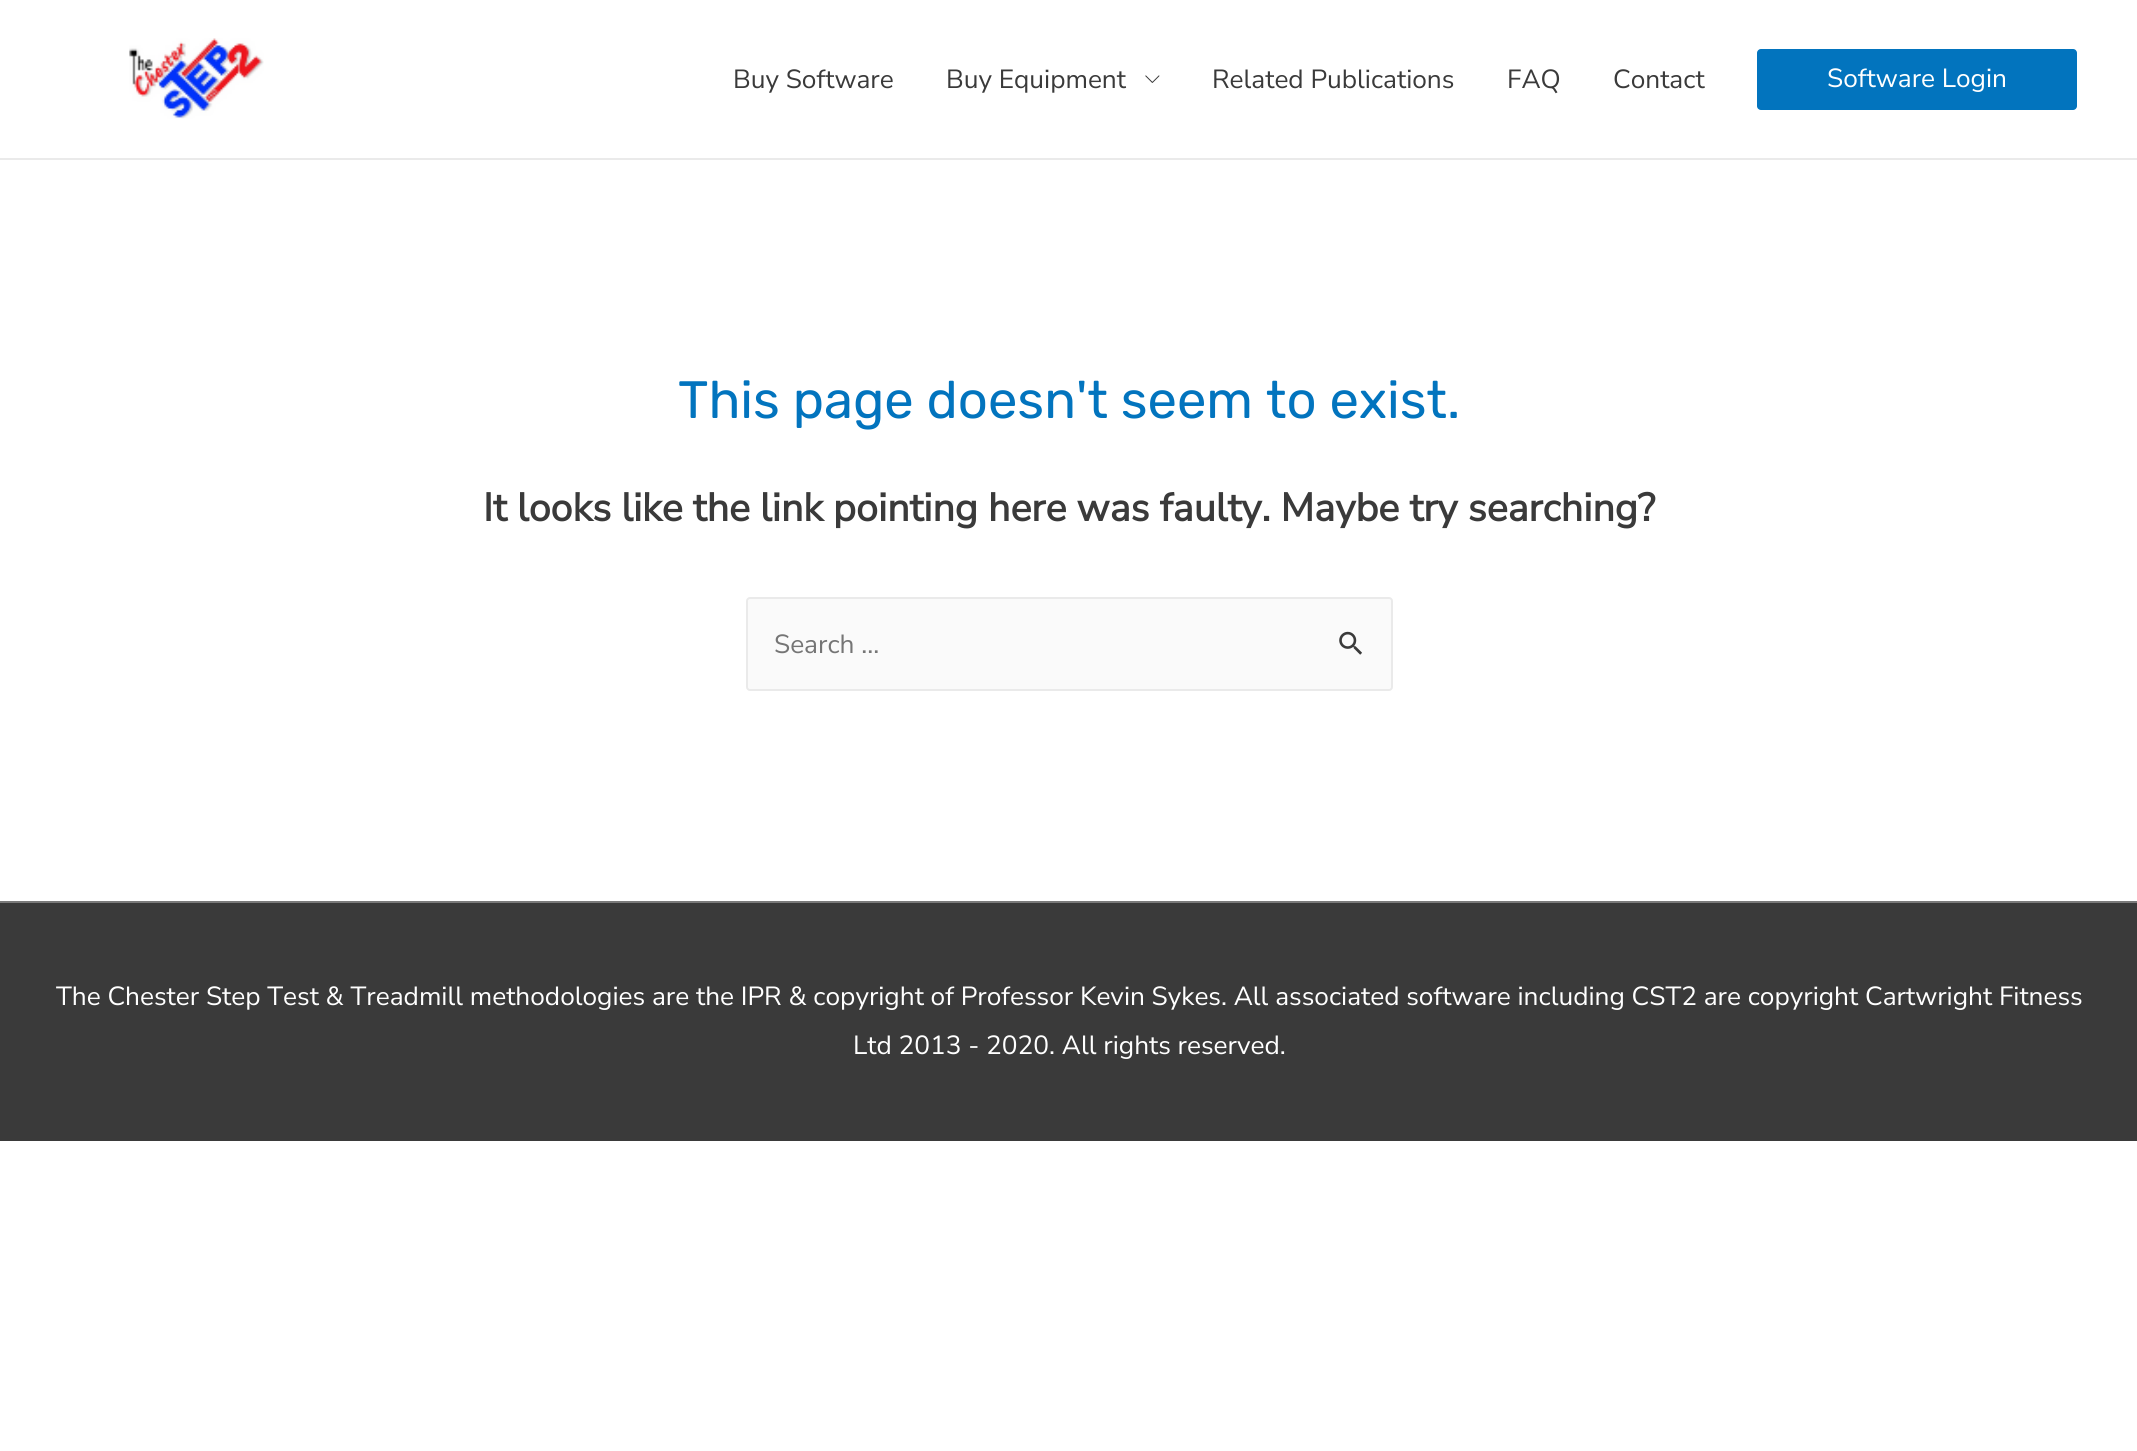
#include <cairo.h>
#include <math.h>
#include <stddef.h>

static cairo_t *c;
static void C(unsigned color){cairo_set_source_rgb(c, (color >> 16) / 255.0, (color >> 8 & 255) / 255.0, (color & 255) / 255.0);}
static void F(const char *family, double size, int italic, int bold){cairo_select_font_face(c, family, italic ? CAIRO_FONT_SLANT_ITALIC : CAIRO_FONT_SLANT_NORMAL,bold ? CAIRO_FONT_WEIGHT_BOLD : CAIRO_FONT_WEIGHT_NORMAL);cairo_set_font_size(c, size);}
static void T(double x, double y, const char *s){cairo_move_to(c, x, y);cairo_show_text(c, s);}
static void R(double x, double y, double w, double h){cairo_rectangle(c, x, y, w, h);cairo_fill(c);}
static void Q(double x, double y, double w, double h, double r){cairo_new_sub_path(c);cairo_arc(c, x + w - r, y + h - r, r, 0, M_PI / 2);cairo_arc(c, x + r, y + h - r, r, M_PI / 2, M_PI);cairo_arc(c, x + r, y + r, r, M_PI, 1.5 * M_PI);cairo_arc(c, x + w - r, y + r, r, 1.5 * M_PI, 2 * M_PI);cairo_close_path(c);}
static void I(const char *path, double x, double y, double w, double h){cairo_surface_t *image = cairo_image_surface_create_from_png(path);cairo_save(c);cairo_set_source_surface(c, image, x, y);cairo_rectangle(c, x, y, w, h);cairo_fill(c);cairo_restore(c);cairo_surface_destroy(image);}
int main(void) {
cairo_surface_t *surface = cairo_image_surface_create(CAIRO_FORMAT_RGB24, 2137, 1451);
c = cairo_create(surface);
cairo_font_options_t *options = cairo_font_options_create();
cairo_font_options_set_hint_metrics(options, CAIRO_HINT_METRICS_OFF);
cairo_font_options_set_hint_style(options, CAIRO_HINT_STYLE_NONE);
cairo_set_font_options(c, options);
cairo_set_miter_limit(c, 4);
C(0xffffff);
cairo_paint(c);
C(0xeaeaea);
R(0,158,2137,2);
I("1.png",129,38,135,81);
F("Nunito Sans ExtraLight",26.25,0,0);
C(0x3a3a3a);
T(733,88,"Buy Software");
T(946,88,"Buy Equipment");
I("2.png",1145,75,15,8);
T(1212,88,"Related Publications");
T(1507,88,"FAQ");
T(1613,88,"Contact");
C(0x0274be);
Q(1757,49,320,61,4);
cairo_fill(c);
C(0xffffff);
T(1827,87,"Software Login");
F("Rubik Light",52.5,0,0);
C(0x0274be);
T(678,418,"This page doesn't seem to exist.");
F("Nunito Sans",39.4,0,1);
C(0x3a3a3a);
T(483,521,"It looks like the link pointing here was faulty. Maybe try searching?");
C(0xfafafa);
Q(747,598,645,92,3);
cairo_fill_preserve(c);
C(0xeaeaea);
cairo_stroke(c);
F("Nunito Sans ExtraLight",26.25,0,0);
C(0x757575);
T(774,653,"Search …");
I("3.png",1339,631,23,24);
C(0x7a7a7a);
R(0,901,2137,2);
C(0x3a3a3a);
R(0,903,2137,238);
C(0xffffff);
T(56,1005,"The Chester Step Test & Treadmill methodologies are the IPR & copyright of Professor Kevin Sykes. All associated software including CST2 are copyright Cartwright Fitness");
T(853,1054,"Ltd 2013 - 2020. All rights reserved.");
cairo_surface_write_to_png(surface, "o.png");
cairo_font_options_destroy(options);
cairo_destroy(c);
cairo_surface_destroy(surface);
return 0;
}
